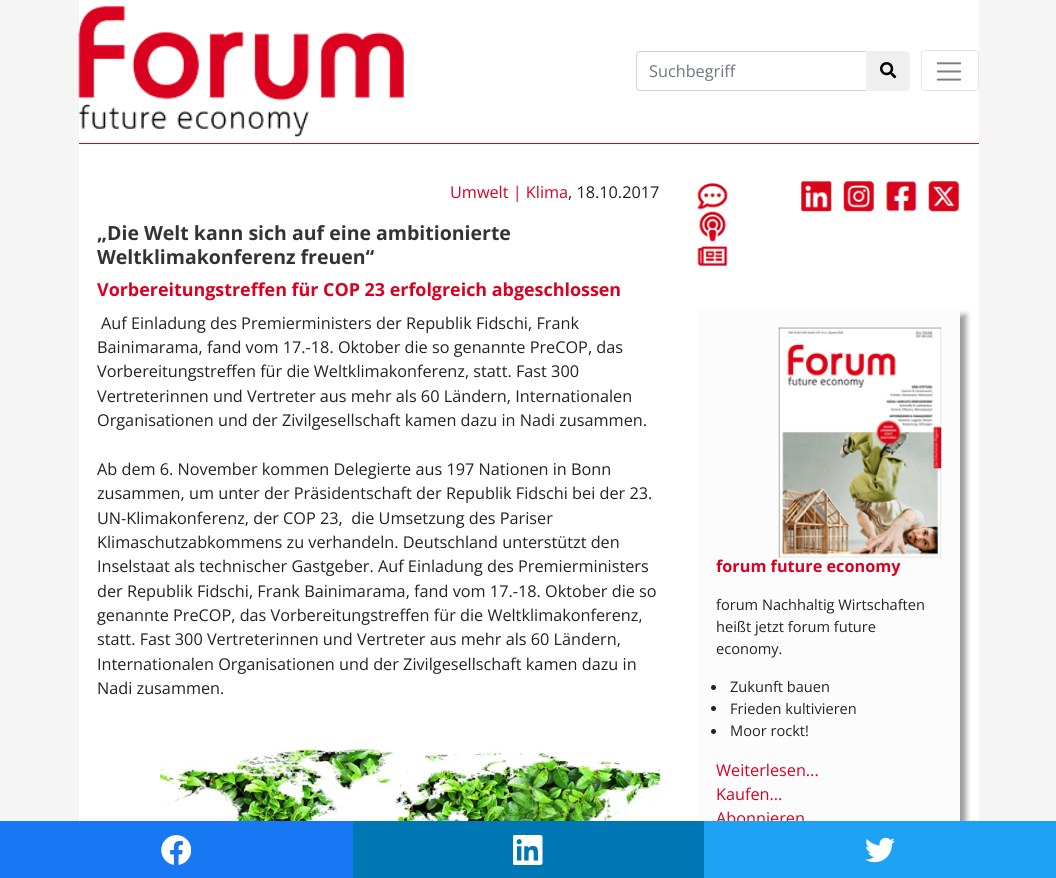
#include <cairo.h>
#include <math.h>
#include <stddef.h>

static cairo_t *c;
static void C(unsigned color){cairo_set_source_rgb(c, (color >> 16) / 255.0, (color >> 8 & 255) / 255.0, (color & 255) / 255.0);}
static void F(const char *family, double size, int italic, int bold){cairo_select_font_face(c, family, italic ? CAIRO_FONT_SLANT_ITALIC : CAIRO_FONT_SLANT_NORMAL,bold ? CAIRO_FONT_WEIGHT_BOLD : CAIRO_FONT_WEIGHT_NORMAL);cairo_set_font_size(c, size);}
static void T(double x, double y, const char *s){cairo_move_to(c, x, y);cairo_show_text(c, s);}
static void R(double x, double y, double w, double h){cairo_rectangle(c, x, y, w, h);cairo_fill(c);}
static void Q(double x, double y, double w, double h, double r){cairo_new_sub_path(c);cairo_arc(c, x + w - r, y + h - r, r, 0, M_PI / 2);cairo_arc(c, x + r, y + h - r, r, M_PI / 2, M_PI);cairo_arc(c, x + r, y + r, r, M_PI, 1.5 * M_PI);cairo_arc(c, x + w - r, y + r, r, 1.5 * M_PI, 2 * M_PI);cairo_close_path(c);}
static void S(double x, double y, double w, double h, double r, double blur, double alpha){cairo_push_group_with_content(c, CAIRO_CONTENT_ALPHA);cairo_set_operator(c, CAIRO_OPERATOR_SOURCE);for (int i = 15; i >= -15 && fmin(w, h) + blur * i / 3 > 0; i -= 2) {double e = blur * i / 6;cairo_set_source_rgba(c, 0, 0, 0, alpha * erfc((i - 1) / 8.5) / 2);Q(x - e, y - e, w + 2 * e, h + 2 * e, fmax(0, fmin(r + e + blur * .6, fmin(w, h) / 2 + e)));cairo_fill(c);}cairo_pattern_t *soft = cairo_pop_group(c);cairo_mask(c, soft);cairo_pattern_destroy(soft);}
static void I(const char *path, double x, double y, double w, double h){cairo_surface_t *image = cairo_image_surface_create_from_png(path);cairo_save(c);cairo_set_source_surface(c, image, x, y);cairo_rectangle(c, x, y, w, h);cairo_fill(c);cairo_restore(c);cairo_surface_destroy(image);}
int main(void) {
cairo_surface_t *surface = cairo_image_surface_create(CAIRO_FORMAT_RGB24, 1056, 878);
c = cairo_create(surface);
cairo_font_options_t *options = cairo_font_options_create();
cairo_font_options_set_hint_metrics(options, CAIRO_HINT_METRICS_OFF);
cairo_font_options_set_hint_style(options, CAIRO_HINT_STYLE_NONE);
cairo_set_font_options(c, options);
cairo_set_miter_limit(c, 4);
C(0xf5f5f5);
cairo_paint(c);
C(0xffffff);
R(79,0,900,143);
C(0xda001f);
R(79,143,900,1);
I("1.png",78,6,326,131);
cairo_new_path(c);
cairo_move_to(c,640,51.5);
cairo_line_to(c,867.5,51.5);
cairo_line_to(c,867.5,90.5);
cairo_line_to(c,640,90.5);
cairo_curve_to(c,638,90.5,636.5,89,636.5,87);
cairo_line_to(c,636.5,55);
cairo_curve_to(c,636.5,53,638,51.5,640,51.5);
cairo_close_path(c);
C(0xced4da);
cairo_set_line_width(c,1);
cairo_stroke(c);
F("Open Sans",16.25,0,0);
C(0x6c757d);
T(649,77,"Suchbegriff");
C(0xefefef);
cairo_new_path(c);
cairo_move_to(c,866,51);
cairo_line_to(c,906,51);
cairo_curve_to(c,908,51,910,53,910,55);
cairo_line_to(c,910,87);
cairo_curve_to(c,910,89,908,91,906,91);
cairo_line_to(c,866,91);
cairo_close_path(c);
cairo_fill(c);
I("2.png",880,62,17,17);
Q(921.5,50.5,57,40,3.5);
C(0xe6e6e6);
cairo_stroke(c);
I("3.png",936,62,26,19);
C(0xffffff);
R(79,144,900,677);
C(0xda001f);
T(450,198,"Umwelt | Klima");
C(0x222222);
T(568,198,", 18.10.2017");
F("Open Sans",19.5,0,1);
C(0x333333);
T(97,240,"„Die Welt kann sich auf eine ambitionierte");
T(97,264,"Weltklimakonferenz freuen“");
F("Open Sans",17.9,0,1);
C(0xda001f);
T(97,296,"Vorbereitungstreffen für COP 23 erfolgreich abgeschlossen");
F("Open Sans",16.25,0,0);
C(0x222222);
T(101,329,"Auf Einladung des Premierministers der Republik Fidschi, Frank");
T(97,353,"Bainimarama, fand vom 17.-18. Oktober die so genannte PreCOP, das");
T(97,377,"Vorbereitungstreffen für die Weltklimakonferenz, statt. Fast 300");
T(97,402,"Vertreterinnen und Vertreter aus mehr als 60 Ländern, Internationalen");
T(97,426,"Organisationen und der Zivilgesellschaft kamen dazu in Nadi zusammen.");
T(97,475,"Ab dem 6. November kommen Delegierte aus 197 Nationen in Bonn");
T(97,499,"zusammen, um unter der Präsidentschaft der Republik Fidschi bei der 23.");
T(97,524,"UN-Klimakonferenz, der COP 23,  die Umsetzung des Pariser");
T(97,548,"Klimaschutzabkommens zu verhandeln. Deutschland unterstützt den");
T(97,572,"Inselstaat als technischer Gastgeber. Auf Einladung des Premierministers");
T(97,597,"der Republik Fidschi, Frank Bainimarama, fand vom 17.-18. Oktober die so");
T(97,621,"genannte PreCOP, das Vorbereitungstreffen für die Weltklimakonferenz,");
T(97,645,"statt. Fast 300 Vertreterinnen und Vertreter aus mehr als 60 Ländern,");
T(97,670,"Internationalen Organisationen und der Zivilgesellschaft kamen dazu in");
T(97,694,"Nadi zusammen.");
I("4.png",160,748,500,73);
I("5.png",697,183,31,27);
I("6.png",699,211,27,31);
I("7.png",697,246,31,20);
I("8.png",801,181,31,31);
I("9.png",843,181,31,31);
I("10.png",886,181,31,31);
I("11.png",928,181,31,31);
C(0x999999);
S(704,315,262,541,0,3,1);
C(0xfcfcfc);
R(698,309,262,512);
I("12.png",778,327,164,231);
F("Open Sans",16.25,0,1);
C(0xda001f);
T(716,572,"forum future economy");
F("Open Sans",14.6,0,0);
C(0x222222);
T(716,610,"forum Nachhaltig Wirtschaften");
T(716,632,"heißt jetzt forum future");
T(716,654,"economy.");
cairo_new_path(c);
cairo_arc(c,713.5,687.5,2.5,0,2 * M_PI);
cairo_fill(c);
T(730,692,"Zukunft bauen");
cairo_new_path(c);
cairo_arc(c,713.5,708.5,2.5,0,2 * M_PI);
cairo_fill(c);
T(730,714,"Frieden kultivieren");
cairo_new_path(c);
cairo_arc(c,713.5,731.5,2.5,0,2 * M_PI);
cairo_fill(c);
T(730,736,"Moor rockt!");
F("Open Sans",16.25,0,0);
C(0xda001f);
T(716,776,"Weiterlesen...");
T(716,800,"Kaufen...");
T(716,824,"Abonnieren");
C(0x1877f2);
R(0,821,353,57);
I("13.png",161,835,30,30);
C(0x0077b5);
R(353,821,351,57);
I("14.png",513,835,30,30);
C(0x1da1f2);
R(704,821,352,57);
I("15.png",865,837,30,26);
cairo_surface_write_to_png(surface, "o.png");
cairo_font_options_destroy(options);
cairo_destroy(c);
cairo_surface_destroy(surface);
return 0;
}
